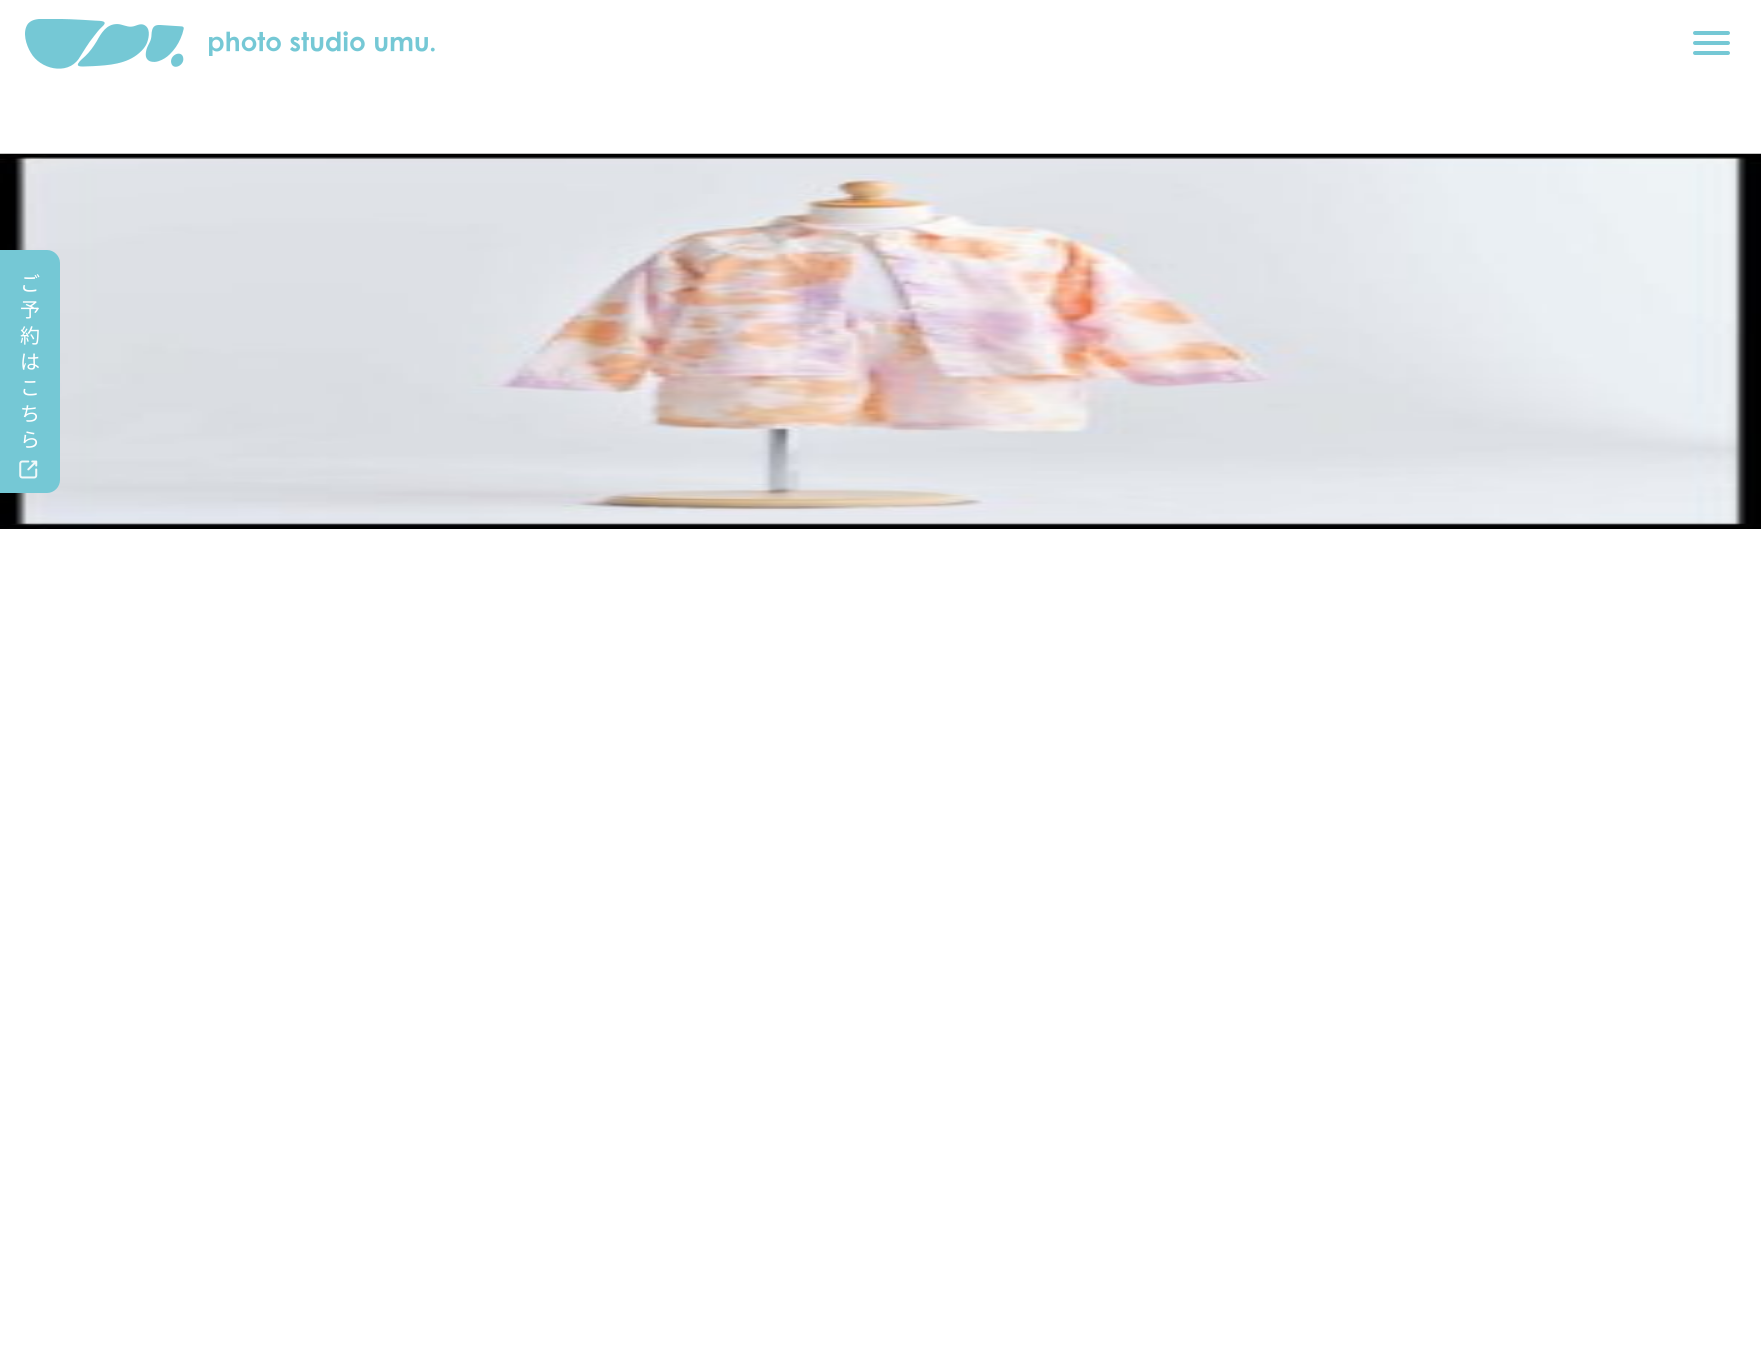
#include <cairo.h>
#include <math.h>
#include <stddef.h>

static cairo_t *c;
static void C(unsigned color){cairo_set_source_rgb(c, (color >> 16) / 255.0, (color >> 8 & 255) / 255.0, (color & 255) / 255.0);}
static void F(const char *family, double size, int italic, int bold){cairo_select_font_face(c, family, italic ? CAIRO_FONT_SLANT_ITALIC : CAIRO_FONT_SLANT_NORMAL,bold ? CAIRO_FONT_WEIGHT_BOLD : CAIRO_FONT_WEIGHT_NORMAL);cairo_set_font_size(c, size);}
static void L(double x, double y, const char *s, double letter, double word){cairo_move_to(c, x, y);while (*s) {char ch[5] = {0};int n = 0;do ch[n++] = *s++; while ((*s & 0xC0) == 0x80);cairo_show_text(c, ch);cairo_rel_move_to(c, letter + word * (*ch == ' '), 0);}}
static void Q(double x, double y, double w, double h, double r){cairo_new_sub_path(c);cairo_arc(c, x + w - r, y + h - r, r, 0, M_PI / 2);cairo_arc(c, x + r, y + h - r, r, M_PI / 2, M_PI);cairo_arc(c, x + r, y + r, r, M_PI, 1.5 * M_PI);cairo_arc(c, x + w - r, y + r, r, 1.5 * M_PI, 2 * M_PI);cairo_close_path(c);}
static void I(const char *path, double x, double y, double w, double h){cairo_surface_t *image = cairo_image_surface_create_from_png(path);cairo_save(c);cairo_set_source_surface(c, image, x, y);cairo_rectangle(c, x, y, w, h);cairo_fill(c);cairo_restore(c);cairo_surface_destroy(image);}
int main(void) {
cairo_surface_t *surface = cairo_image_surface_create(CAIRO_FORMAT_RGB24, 1761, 1354);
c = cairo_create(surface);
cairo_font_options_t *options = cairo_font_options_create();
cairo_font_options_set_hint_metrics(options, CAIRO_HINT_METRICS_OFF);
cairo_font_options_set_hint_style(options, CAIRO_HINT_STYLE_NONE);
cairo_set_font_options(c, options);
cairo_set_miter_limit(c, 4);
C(0xffffff);
cairo_paint(c);
I("1.png",0,153,1761,376);
I("2.png",25,19,159,50);
I("3.png",209,31,226,25);
C(0x75c8d5);
Q(1693,31,37,4,2);
cairo_fill(c);
Q(1693,41,37,4,2);
cairo_fill(c);
Q(1693,51,37,4,2);
cairo_fill(c);
cairo_new_path(c);
cairo_move_to(c,0,250);
cairo_line_to(c,47,250);
cairo_curve_to(c,54,250,60,256,60,263);
cairo_line_to(c,60,480);
cairo_curve_to(c,60,487,54,493,47,493);
cairo_line_to(c,0,493);
cairo_close_path(c);
cairo_fill(c);
F("Noto Sans JP",20,0,0);
C(0xffffff);
L(20,291,"ご",2,0);
L(20,317,"予",2,0);
L(20,343,"約",2,0);
L(20,369,"は",2,0);
L(20,395,"こ",2,0);
L(20,421,"ち",2,0);
L(20,447,"ら",2,0);
I("4.png",19,460,19,19);
cairo_surface_write_to_png(surface, "o.png");
cairo_font_options_destroy(options);
cairo_destroy(c);
cairo_surface_destroy(surface);
return 0;
}
